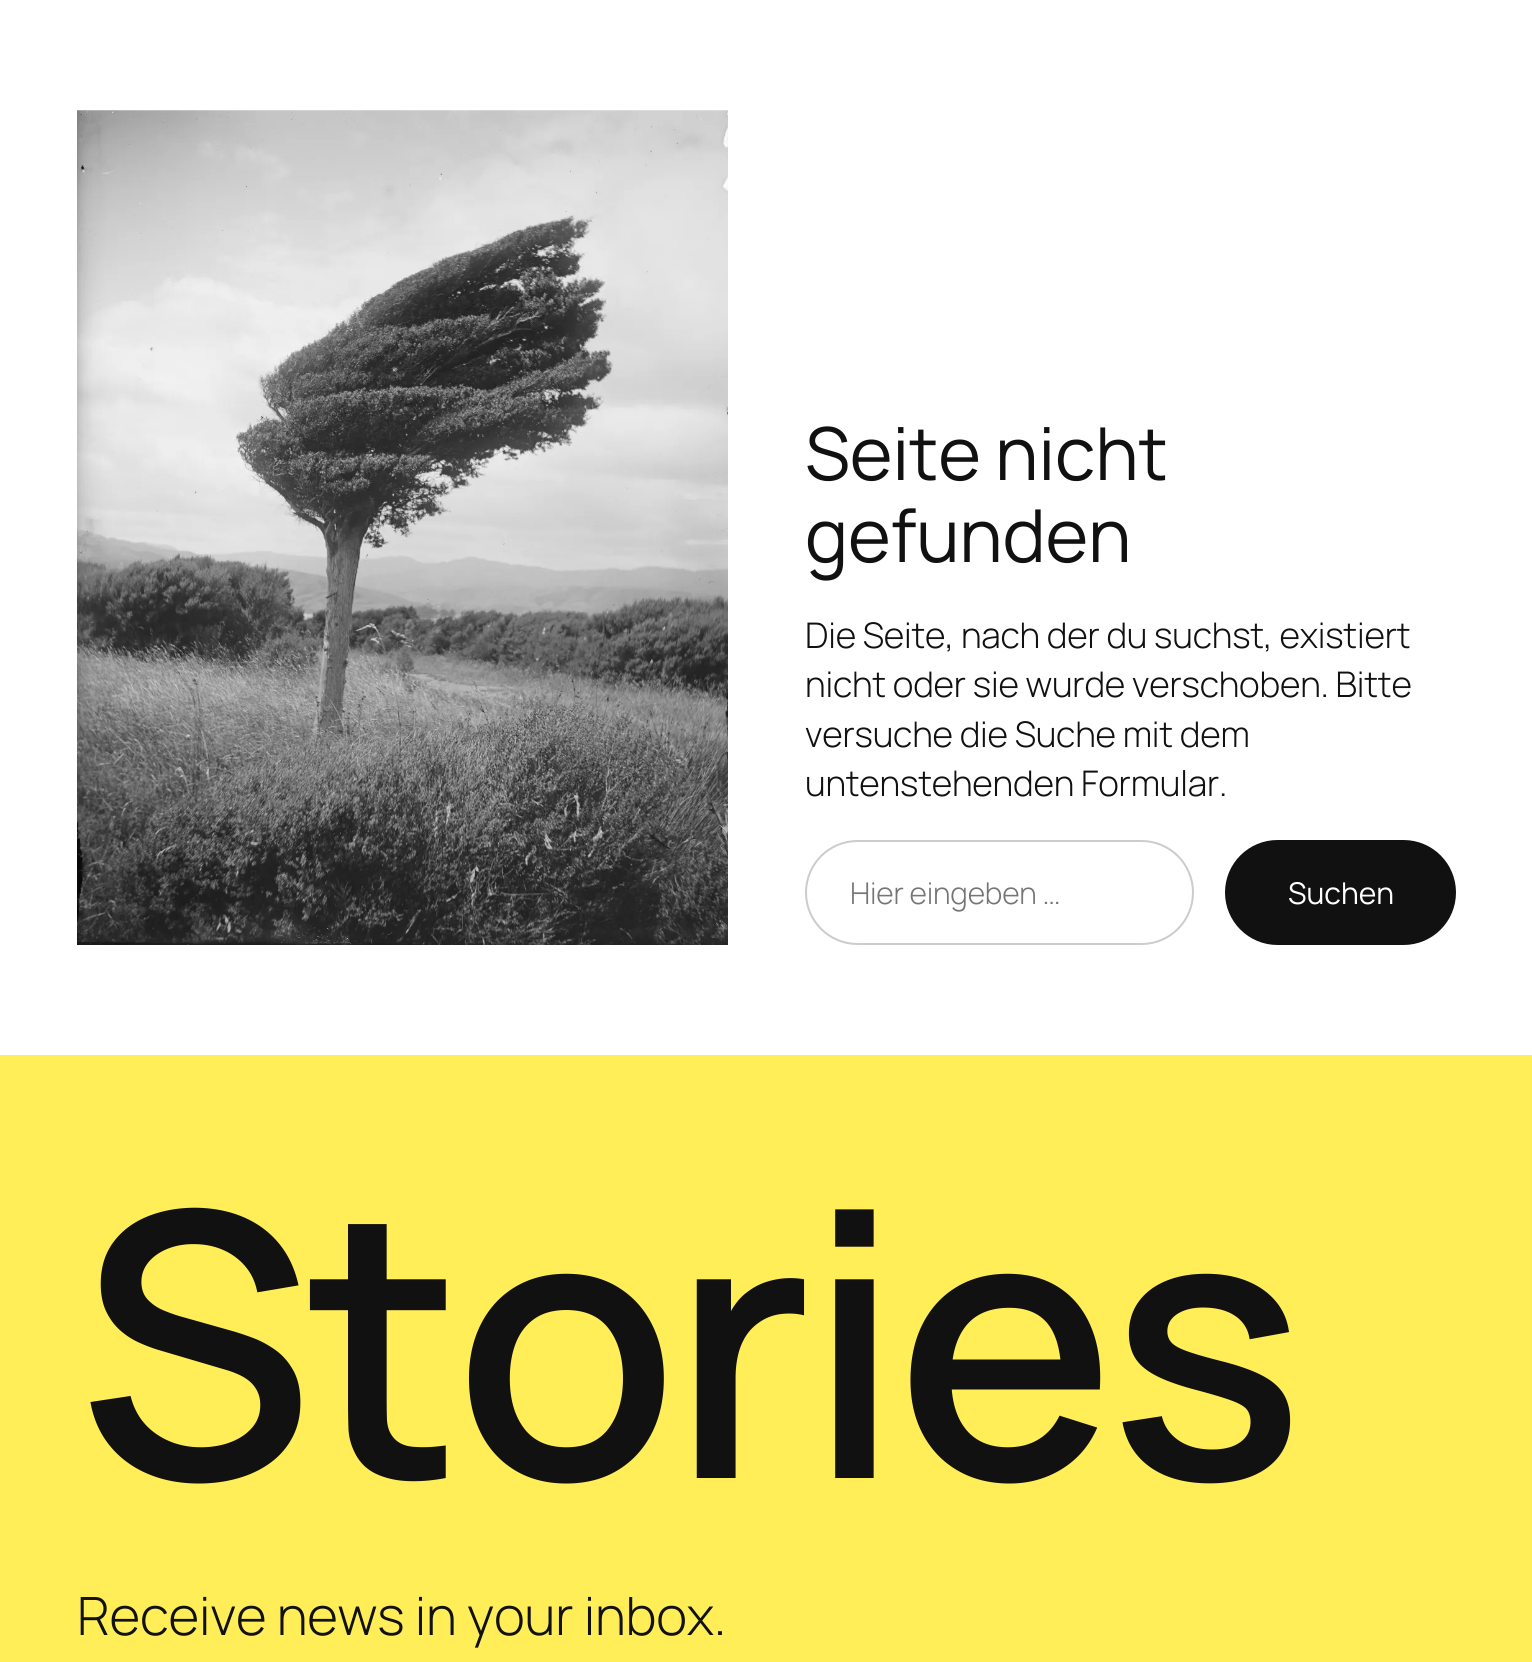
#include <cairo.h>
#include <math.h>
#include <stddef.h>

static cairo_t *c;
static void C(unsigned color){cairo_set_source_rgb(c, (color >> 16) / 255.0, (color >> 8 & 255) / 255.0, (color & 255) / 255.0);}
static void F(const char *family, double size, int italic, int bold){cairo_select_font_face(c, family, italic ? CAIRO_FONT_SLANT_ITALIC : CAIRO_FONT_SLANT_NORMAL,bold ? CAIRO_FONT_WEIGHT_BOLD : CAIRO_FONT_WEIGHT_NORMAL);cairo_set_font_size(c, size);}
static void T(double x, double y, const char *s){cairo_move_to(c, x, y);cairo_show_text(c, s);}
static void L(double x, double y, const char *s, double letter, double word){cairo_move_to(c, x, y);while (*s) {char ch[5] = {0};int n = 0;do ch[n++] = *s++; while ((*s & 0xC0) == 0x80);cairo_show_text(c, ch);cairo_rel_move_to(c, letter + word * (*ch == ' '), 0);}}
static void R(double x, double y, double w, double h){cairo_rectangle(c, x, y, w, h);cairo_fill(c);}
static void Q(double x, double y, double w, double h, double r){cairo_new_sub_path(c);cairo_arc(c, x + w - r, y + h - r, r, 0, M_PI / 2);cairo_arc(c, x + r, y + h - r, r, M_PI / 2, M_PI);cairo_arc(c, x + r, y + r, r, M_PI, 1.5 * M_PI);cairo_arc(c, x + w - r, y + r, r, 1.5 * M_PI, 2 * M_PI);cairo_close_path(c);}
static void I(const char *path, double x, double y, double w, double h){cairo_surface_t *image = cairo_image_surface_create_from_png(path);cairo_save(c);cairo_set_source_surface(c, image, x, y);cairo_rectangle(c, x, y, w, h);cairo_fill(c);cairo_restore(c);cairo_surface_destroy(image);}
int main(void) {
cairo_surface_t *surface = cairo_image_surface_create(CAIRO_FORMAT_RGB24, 1532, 1662);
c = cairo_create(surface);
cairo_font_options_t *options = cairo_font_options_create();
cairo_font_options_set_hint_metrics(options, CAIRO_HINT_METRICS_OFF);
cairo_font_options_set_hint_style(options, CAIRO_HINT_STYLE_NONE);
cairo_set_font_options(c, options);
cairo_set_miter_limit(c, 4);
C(0xffffff);
cairo_paint(c);
I("1.png",77,110,651,835);
F("Manrope",73,0,0);
C(0x111111);
L(805,480,"Seite nicht",-.2,0);
L(805,562,"gefunden",-.2,0);
F("Manrope Light",35.3,0,0);
L(805,648,"Die Seite, nach der du suchst, existiert",-.2,0);
L(805,697,"nicht oder sie wurde verschoben. Bitte",-.2,0);
L(805,747,"versuche die Suche mit dem",-.2,0);
L(805,796,"untenstehenden Formular.",-.2,0);
Q(806,841,387,103,51.5);
C(0xcccccc);
cairo_stroke(c);
F("Manrope Light",30,0,0);
C(0x757575);
L(850,904,"Hier eingeben …",-.2,0);
C(0x111111);
Q(1225,840,231,105,52.5);
cairo_fill(c);
F("Manrope",30,0,0);
C(0xffffff);
T(1288,904,"Suchen");
C(0xffee58);
R(0,1055,1532,607);
F("Manrope SemiBold",368,0,0);
C(0x111111);
L(77,1478,"Stories",-7.5,0);
F("Manrope Light",52.75,0,0);
L(77,1635,"Receive news in your inbox.",-.2,0);
cairo_surface_write_to_png(surface, "o.png");
cairo_font_options_destroy(options);
cairo_destroy(c);
cairo_surface_destroy(surface);
return 0;
}
